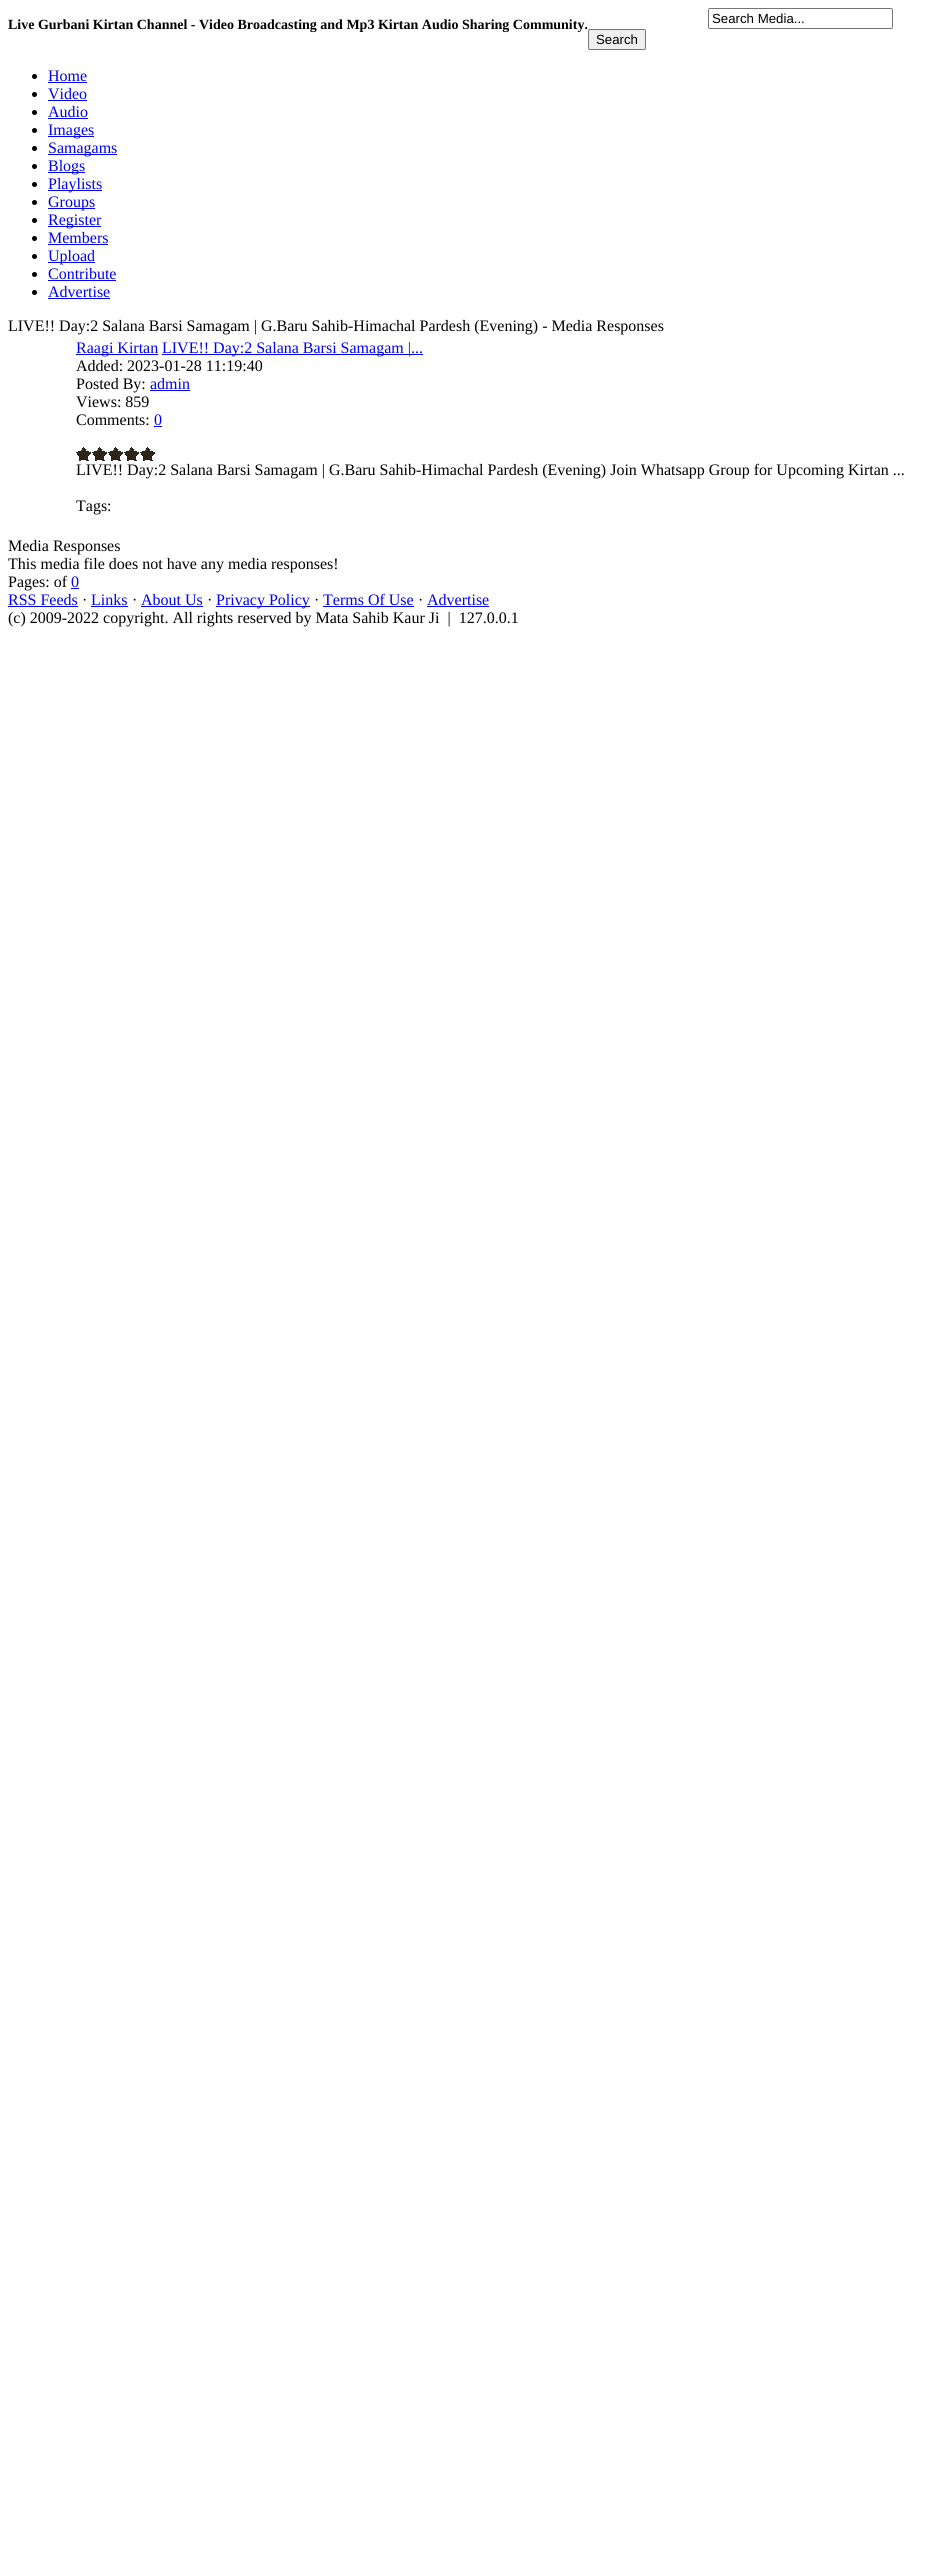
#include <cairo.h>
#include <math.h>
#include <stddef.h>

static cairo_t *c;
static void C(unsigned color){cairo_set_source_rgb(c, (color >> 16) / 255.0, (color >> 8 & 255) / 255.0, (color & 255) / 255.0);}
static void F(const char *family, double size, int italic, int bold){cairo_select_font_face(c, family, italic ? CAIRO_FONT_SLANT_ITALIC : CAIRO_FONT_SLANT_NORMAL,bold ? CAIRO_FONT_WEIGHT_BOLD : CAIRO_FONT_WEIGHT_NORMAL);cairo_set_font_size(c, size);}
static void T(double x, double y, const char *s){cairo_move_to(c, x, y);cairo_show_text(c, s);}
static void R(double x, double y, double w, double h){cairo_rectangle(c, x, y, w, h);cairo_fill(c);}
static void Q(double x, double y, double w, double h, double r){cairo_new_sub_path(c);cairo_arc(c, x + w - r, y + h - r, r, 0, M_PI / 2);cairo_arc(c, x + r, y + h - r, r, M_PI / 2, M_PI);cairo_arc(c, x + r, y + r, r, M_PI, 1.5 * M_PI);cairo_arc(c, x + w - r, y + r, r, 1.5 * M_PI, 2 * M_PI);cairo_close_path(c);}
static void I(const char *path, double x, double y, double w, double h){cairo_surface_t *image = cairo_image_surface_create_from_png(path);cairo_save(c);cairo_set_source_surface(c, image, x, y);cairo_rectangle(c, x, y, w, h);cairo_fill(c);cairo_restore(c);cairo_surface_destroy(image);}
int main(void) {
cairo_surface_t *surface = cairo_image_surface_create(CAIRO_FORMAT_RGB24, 945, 2563);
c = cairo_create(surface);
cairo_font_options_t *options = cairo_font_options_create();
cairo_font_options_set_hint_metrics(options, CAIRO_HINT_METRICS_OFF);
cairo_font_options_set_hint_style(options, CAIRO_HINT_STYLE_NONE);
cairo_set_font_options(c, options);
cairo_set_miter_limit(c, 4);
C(0xffffff);
cairo_paint(c);
Q(708.5,8.5,184,20,1.5);
C(0x767676);
cairo_set_line_width(c,1);
cairo_stroke(c);
F("Liberation Sans",13.25,0,0);
C(0x000000);
T(712,23,"Search Media...");
C(0xefefef);
Q(588.5,29.5,57,20,1.5);
cairo_fill_preserve(c);
C(0x767676);
cairo_stroke(c);
C(0x000000);
T(596,44,"Search");
cairo_new_path(c);
cairo_arc(c,34.5,76.5,2.5,0,2 * M_PI);
cairo_fill(c);
F("Liberation Serif",16,0,0);
C(0x0000ee);
T(48,81,"Home");
R(48,82,39,1);
C(0x000000);
cairo_new_path(c);
cairo_arc(c,34.5,94.5,2.5,0,2 * M_PI);
cairo_fill(c);
C(0x0000ee);
T(48,99,"Video");
R(48,100,39,1);
C(0x000000);
cairo_new_path(c);
cairo_arc(c,34.5,112.5,2.5,0,2 * M_PI);
cairo_fill(c);
C(0x0000ee);
T(48,117,"Audio");
R(48,118,40,1);
C(0x000000);
cairo_new_path(c);
cairo_arc(c,34.5,130.5,2.5,0,2 * M_PI);
cairo_fill(c);
C(0x0000ee);
R(48,136,46,1);
T(48,135,"Images");
C(0x000000);
cairo_new_path(c);
cairo_arc(c,34.5,148.5,2.5,0,2 * M_PI);
cairo_fill(c);
C(0x0000ee);
R(48,154,69,1);
T(48,153,"Samagams");
C(0x000000);
cairo_new_path(c);
cairo_arc(c,34.5,166.5,2.5,0,2 * M_PI);
cairo_fill(c);
C(0x0000ee);
R(48,172,37,1);
T(48,171,"Blogs");
C(0x000000);
cairo_new_path(c);
cairo_arc(c,34.5,184.5,2.5,0,2 * M_PI);
cairo_fill(c);
C(0x0000ee);
R(48,190,54,1);
T(48,189,"Playlists");
C(0x000000);
cairo_new_path(c);
cairo_arc(c,34.5,202.5,2.5,0,2 * M_PI);
cairo_fill(c);
C(0x0000ee);
R(48,208,47,1);
T(48,207,"Groups");
C(0x000000);
cairo_new_path(c);
cairo_arc(c,34.5,220.5,2.5,0,2 * M_PI);
cairo_fill(c);
C(0x0000ee);
R(48,226,53,1);
T(48,225,"Register");
C(0x000000);
cairo_new_path(c);
cairo_arc(c,34.5,238.5,2.5,0,2 * M_PI);
cairo_fill(c);
C(0x0000ee);
T(48,243,"Members");
R(48,244,60,1);
C(0x000000);
cairo_new_path(c);
cairo_arc(c,34.5,256.5,2.5,0,2 * M_PI);
cairo_fill(c);
C(0x0000ee);
R(48,262,47,1);
T(48,261,"Upload");
C(0x000000);
cairo_new_path(c);
cairo_arc(c,34.5,274.5,2.5,0,2 * M_PI);
cairo_fill(c);
C(0x0000ee);
T(48,279,"Contribute");
R(48,280,68,1);
C(0x000000);
cairo_new_path(c);
cairo_arc(c,34.5,292.5,2.5,0,2 * M_PI);
cairo_fill(c);
C(0x0000ee);
T(48,297,"Advertise");
R(48,298,62,1);
C(0x000000);
T(8,331,"LIVE!! Day:2 Salana Barsi Samagam | G.Baru Sahib-Himachal Pardesh (Evening) - Media Responses");
C(0x0000ee);
R(76,354,82,1);
T(76,353,"Raagi Kirtan");
R(162,354,261,1);
T(162,353,"LIVE!! Day:2 Salana Barsi Samagam |...");
C(0x000000);
T(76,371,"Added: 2023-01-28 11:19:40");
T(76,389,"Posted By:");
C(0x0000ee);
T(150,389,"admin");
R(150,390,40,1);
C(0x000000);
T(76,407,"Views: 859");
T(76,425,"Comments:");
C(0x0000ee);
T(154,425,"0");
R(154,426,8,1);
I("1.png",76,447,79,14);
C(0x000000);
T(76,475,"LIVE!! Day:2 Salana Barsi Samagam | G.Baru Sahib-Himachal Pardesh (Evening) Join Whatsapp Group for Upcoming Kirtan ...");
T(76,511,"Tags:");
T(8,551,"Media Responses");
T(8,569,"This media file does not have any media responses!");
T(8,587,"Pages: of");
C(0x0000ee);
T(71,587,"0");
R(71,588,8,1);
F("Liberation Serif",14,0,1);
C(0x000000);
T(8,29,"Live Gurbani Kirtan Channel - Video Broadcasting and Mp3 Kirtan Audio Sharing Community.");
F("Liberation Serif",16,0,0);
C(0x0000ee);
T(8,605,"RSS Feeds");
R(8,606,70,1);
C(0x000000);
T(82,605,"·");
C(0x0000ee);
T(91,605,"Links");
R(91,606,37,1);
C(0x000000);
T(132,605,"·");
C(0x0000ee);
T(141,605,"About Us");
R(141,606,62,1);
C(0x000000);
T(207,605,"·");
C(0x0000ee);
R(216,606,94,1);
T(216,605,"Privacy Policy");
C(0x000000);
T(314,605,"·");
C(0x0000ee);
T(323,605,"Terms Of Use");
R(323,606,91,1);
C(0x000000);
T(418,605,"·");
C(0x0000ee);
T(427,605,"Advertise");
R(427,606,62,1);
C(0x000000);
T(8,623,"(c) 2009-2022 copyright. All rights reserved by Mata Sahib Kaur Ji  |  127.0.0.1");
cairo_surface_write_to_png(surface, "o.png");
cairo_font_options_destroy(options);
cairo_destroy(c);
cairo_surface_destroy(surface);
return 0;
}
